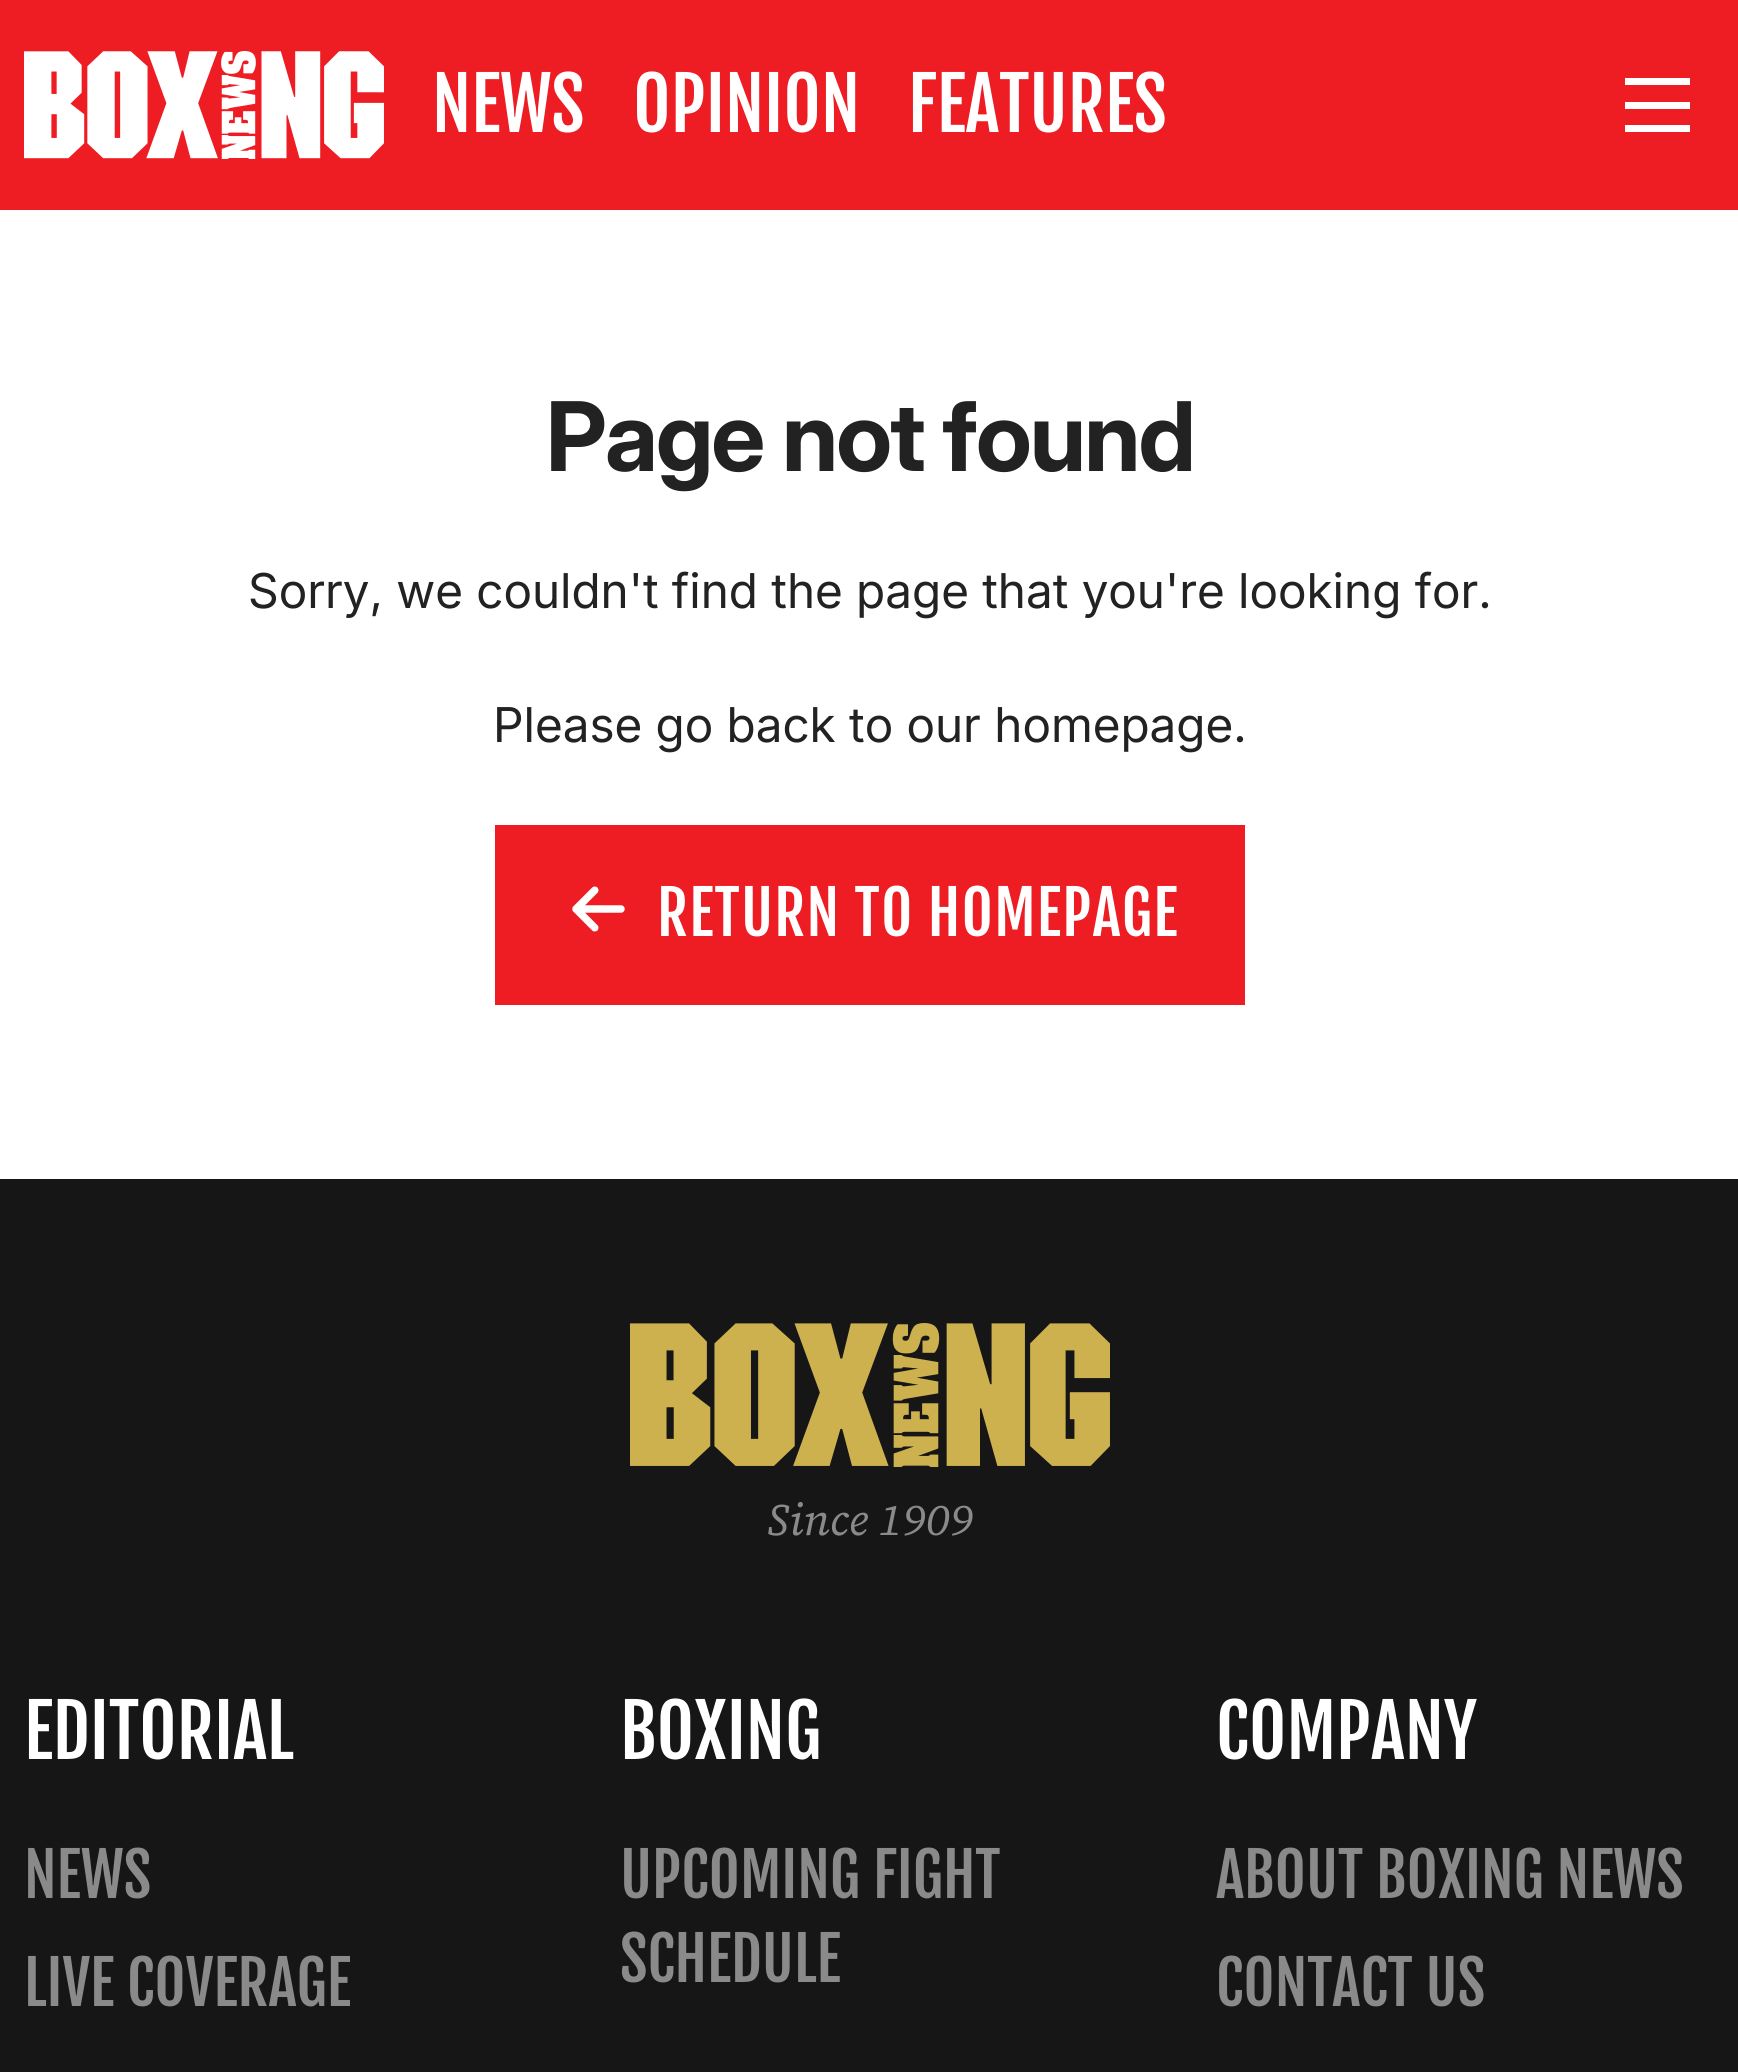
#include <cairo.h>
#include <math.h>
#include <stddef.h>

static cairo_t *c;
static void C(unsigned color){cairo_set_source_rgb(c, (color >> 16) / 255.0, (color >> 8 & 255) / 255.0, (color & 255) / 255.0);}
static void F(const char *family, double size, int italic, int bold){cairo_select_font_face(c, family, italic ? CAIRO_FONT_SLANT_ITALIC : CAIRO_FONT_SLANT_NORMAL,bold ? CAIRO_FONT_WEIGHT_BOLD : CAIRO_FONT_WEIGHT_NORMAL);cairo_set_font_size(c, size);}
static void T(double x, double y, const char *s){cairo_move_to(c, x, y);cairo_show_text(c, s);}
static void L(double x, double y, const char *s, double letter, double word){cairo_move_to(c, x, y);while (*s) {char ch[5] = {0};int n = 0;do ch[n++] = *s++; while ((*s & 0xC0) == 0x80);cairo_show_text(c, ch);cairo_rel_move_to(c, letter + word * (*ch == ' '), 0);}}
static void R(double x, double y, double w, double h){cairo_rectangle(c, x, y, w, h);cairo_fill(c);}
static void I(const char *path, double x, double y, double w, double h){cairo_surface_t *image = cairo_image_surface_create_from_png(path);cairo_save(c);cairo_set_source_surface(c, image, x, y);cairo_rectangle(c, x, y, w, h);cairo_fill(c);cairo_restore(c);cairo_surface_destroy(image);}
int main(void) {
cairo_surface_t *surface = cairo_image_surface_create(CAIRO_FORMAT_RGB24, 1738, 2072);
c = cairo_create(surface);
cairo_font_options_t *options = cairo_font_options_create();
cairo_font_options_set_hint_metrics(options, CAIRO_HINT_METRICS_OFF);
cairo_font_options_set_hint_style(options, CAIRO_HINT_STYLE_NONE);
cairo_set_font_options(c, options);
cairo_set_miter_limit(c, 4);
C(0xffffff);
cairo_paint(c);
C(0xed1d23);
R(0,0,1738,210);
I("1.png",24,51,360,108);
F("Fjalla One",72,0,0);
C(0xffffff);
T(432,132,"NEWS");
T(633,132,"OPINION");
T(908,132,"FEATURES");
cairo_new_path(c);
cairo_move_to(c,1625,78);
cairo_line_to(c,1690,78);
cairo_line_to(c,1690,85);
cairo_line_to(c,1625,85);
cairo_close_path(c);
cairo_move_to(c,1625,102);
cairo_line_to(c,1690,102);
cairo_line_to(c,1690,109);
cairo_line_to(c,1625,109);
cairo_close_path(c);
cairo_move_to(c,1690,125);
cairo_line_to(c,1690,132);
cairo_line_to(c,1625,132);
cairo_line_to(c,1625,125);
cairo_close_path(c);
cairo_fill(c);
F("Inter",96,0,1);
C(0x222222);
L(546,471,"Page not found",-1.9,0);
F("Inter",48,0,0);
T(248,608,"Sorry, we couldn't find the page that you're looking for.");
T(493,742,"Please go back to our homepage.");
C(0xed1d23);
R(495,825,750,180);
I("2.png",572,886,53,46);
F("Fjalla One",60,0,0);
C(0xffffff);
L(657,936,"RETURN TO HOMEPAGE",1.25,0);
C(0x161616);
R(0,1179,1738,893);
I("3.png",630,1323,480,144);
F("Source Serif 4",44.5,1,0);
C(0x8a8a8a);
T(767,1535,"Since 1909");
F("Fjalla One",72,0,0);
C(0xffffff);
T(24,1759,"EDITORIAL");
F("Fjalla One",60,0,0);
C(0x8a8a8a);
T(24,1898,"NEWS");
T(24,2006,"LIVE COVERAGE");
F("Fjalla One",72,0,0);
C(0xffffff);
T(620,1759,"BOXING");
F("Fjalla One",60,0,0);
C(0x8a8a8a);
T(620,1898,"UPCOMING FIGHT");
T(620,1982,"SCHEDULE");
F("Fjalla One",72,0,0);
C(0xffffff);
T(1216,1759,"COMPANY");
F("Fjalla One",60,0,0);
C(0x8a8a8a);
T(1216,1898,"ABOUT BOXING NEWS");
T(1216,2006,"CONTACT US");
cairo_surface_write_to_png(surface, "o.png");
cairo_font_options_destroy(options);
cairo_destroy(c);
cairo_surface_destroy(surface);
return 0;
}
